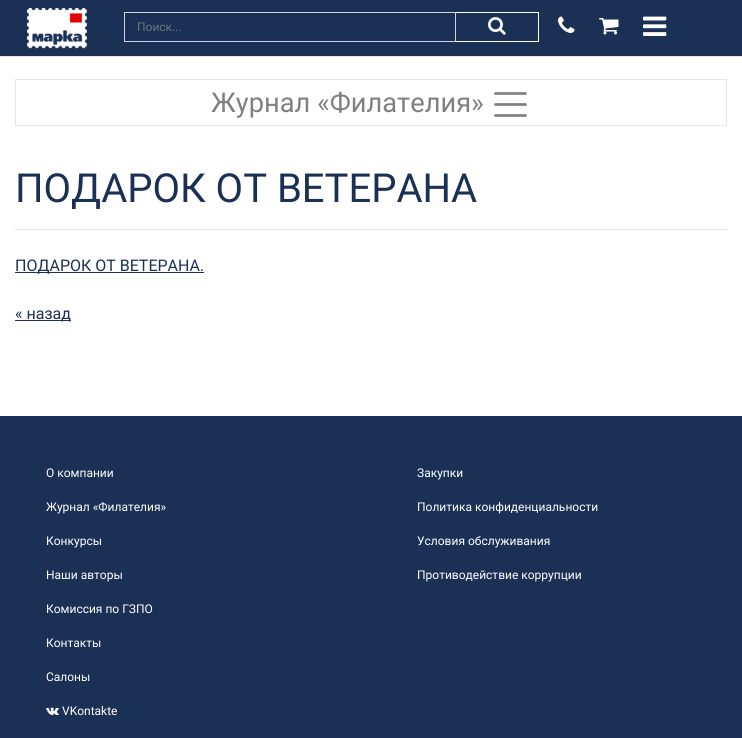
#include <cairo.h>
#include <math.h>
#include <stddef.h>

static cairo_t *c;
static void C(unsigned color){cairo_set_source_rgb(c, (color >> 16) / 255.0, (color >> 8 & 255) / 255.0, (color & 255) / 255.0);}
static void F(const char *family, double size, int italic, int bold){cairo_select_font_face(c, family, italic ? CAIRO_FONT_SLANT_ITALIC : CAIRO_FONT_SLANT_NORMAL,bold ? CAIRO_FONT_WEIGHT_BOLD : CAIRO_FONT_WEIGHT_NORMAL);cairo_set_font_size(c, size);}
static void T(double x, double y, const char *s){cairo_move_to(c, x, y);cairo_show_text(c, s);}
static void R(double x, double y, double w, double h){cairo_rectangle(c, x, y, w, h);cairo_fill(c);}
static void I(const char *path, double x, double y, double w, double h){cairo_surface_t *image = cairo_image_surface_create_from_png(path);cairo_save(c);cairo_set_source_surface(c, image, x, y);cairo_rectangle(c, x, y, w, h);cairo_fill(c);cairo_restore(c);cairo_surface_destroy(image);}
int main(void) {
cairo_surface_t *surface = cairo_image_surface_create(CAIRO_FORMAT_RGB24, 742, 738);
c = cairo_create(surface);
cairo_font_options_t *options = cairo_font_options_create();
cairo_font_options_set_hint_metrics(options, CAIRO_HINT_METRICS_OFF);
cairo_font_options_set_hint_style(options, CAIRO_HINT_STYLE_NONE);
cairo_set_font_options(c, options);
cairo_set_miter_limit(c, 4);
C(0xffffff);
cairo_paint(c);
C(0x1a3055);
R(0,0,742,56);
C(0xe5e5e5);
R(0,56,742,1);
I("1.png",27,8,60,41);
cairo_rectangle(c,124.5,12.5,331,29);
C(0xced4da);
cairo_set_line_width(c,1);
cairo_stroke(c);
F("Roboto",12,0,0);
C(0x6c757d);
T(137,31,"Поиск...");
C(0xffffff);
R(456,12,83,1);
R(538,12,1,30);
R(456,41,83,1);
I("2.png",488,17,18,18);
I("3.png",558,16,17,17);
I("4.png",599,18,20,17);
I("5.png",643,16,24,20);
cairo_rectangle(c,15.5,79.5,711,46);
C(0xe6e6e6);
cairo_stroke(c);
F("Roboto",27.25,0,0);
C(0x808080);
T(211,112,"Журнал «Филателия»");
cairo_new_path(c);
cairo_move_to(c,495.5,93.5);
cairo_line_to(c,525.5,93.5);
cairo_move_to(c,495.5,104.5);
cairo_line_to(c,525.5,104.5);
cairo_move_to(c,495.5,115.5);
cairo_line_to(c,525.5,115.5);
cairo_set_line_width(c,2.7);
cairo_set_line_cap(c,CAIRO_LINE_CAP_ROUND);
cairo_stroke(c);
C(0xdee2e6);
R(15,229,712,1);
F("Roboto",40,0,0);
C(0x1a3055);
T(15,202,"ПОДАРОК ОТ ВЕТЕРАНА");
R(15,272,189,1);
F("Roboto",16,0,0);
T(15,271,"ПОДАРОК ОТ ВЕТЕРАНА.");
R(15,320,56,1);
T(15,319,"« назад");
R(0,416,742,322);
F("Roboto",12,0,0);
C(0xffffff);
T(46,477,"О компании");
T(46,511,"Журнал «Филателия»");
T(46,545,"Конкурсы");
T(46,579,"Наши авторы");
T(46,613,"Комиссия по ГЗПО");
T(417,477,"Закупки");
T(417,511,"Политика конфиденциальности");
T(417,545,"Условия обслуживания");
T(417,579,"Противодействие коррупции");
T(46,647,"Контакты");
T(46,681,"Салоны");
I("6.png",46,707,13,8);
T(62,715,"VKontakte");
cairo_surface_write_to_png(surface, "o.png");
cairo_font_options_destroy(options);
cairo_destroy(c);
cairo_surface_destroy(surface);
return 0;
}
